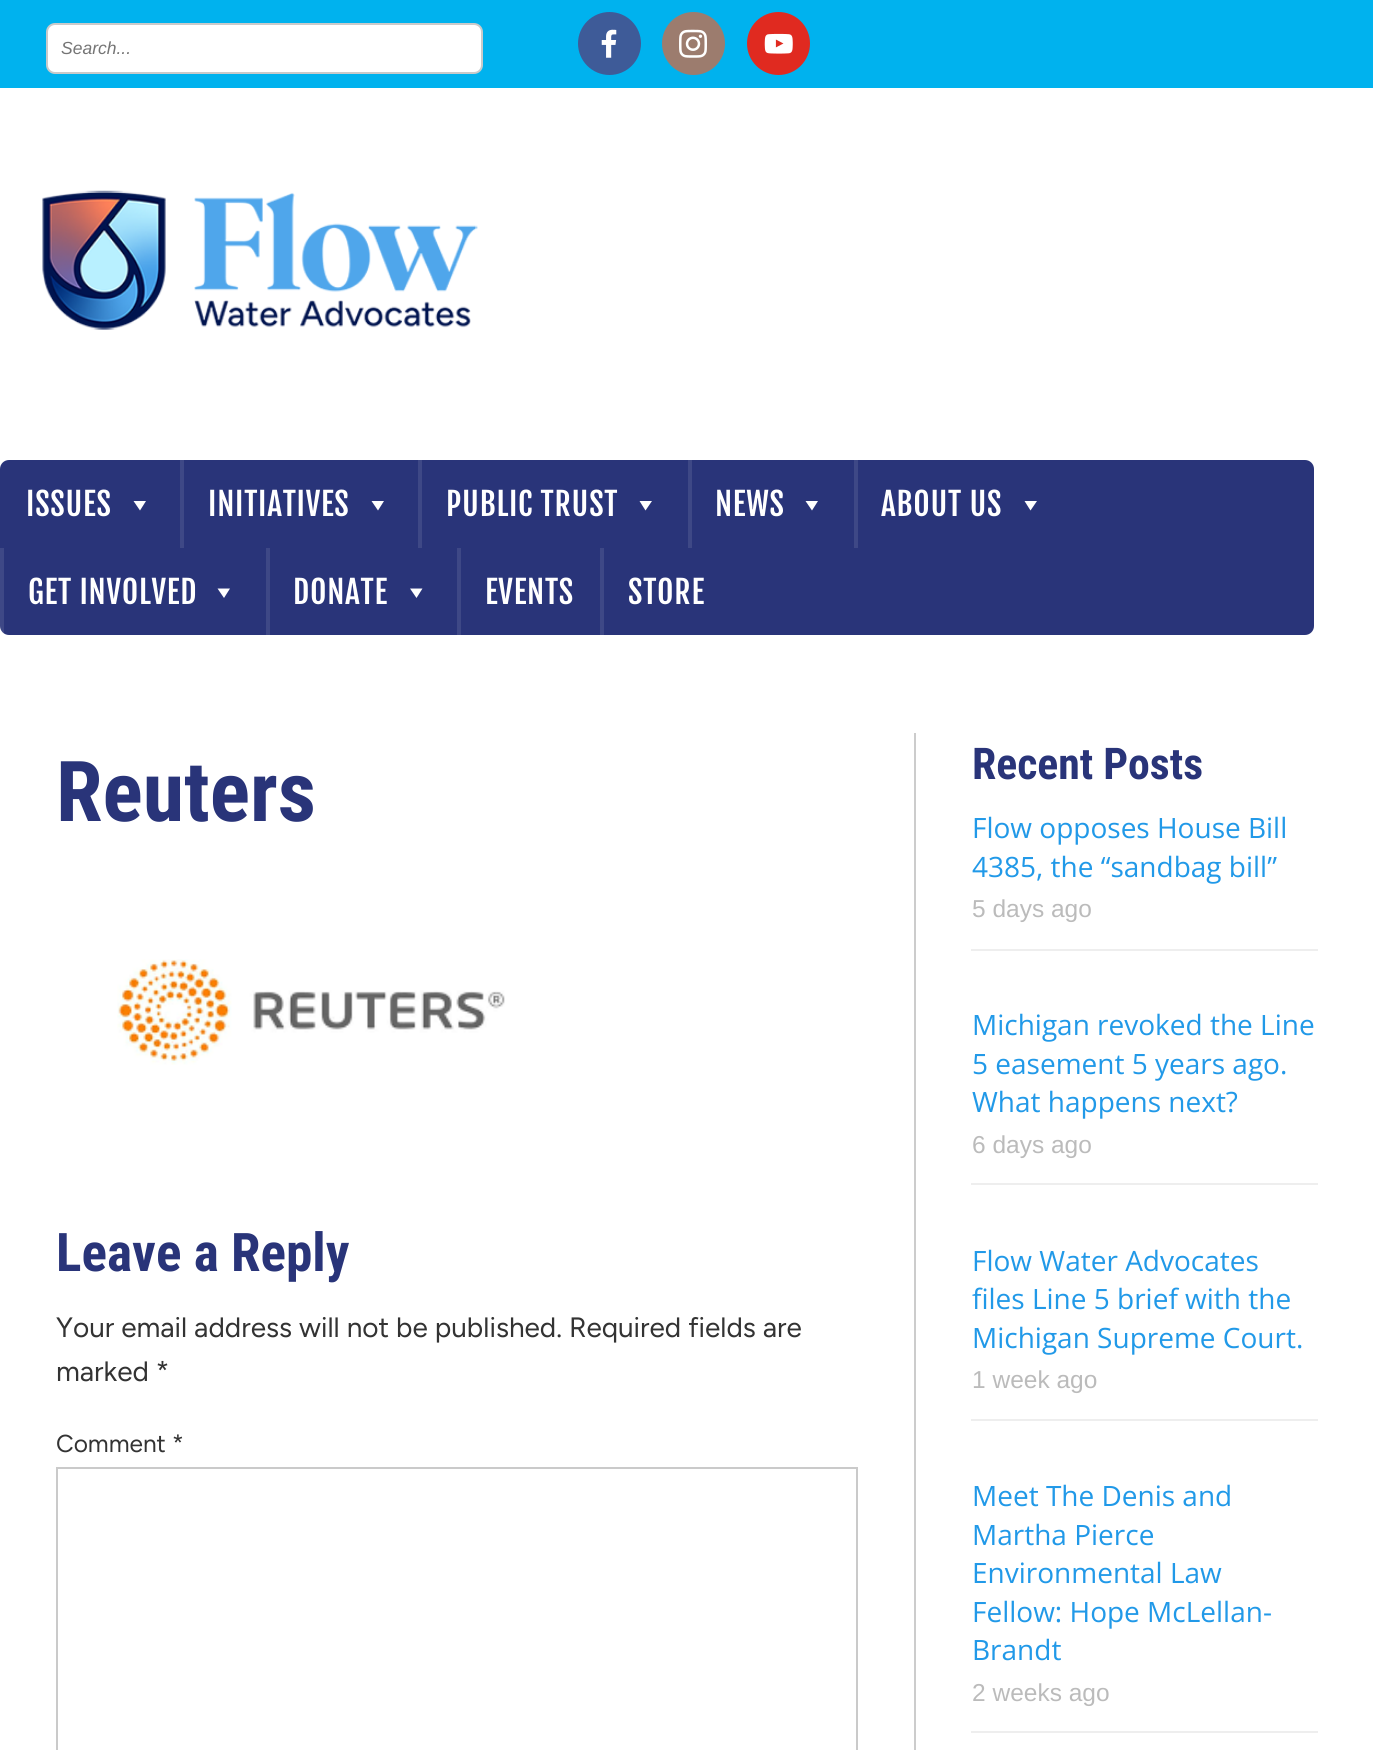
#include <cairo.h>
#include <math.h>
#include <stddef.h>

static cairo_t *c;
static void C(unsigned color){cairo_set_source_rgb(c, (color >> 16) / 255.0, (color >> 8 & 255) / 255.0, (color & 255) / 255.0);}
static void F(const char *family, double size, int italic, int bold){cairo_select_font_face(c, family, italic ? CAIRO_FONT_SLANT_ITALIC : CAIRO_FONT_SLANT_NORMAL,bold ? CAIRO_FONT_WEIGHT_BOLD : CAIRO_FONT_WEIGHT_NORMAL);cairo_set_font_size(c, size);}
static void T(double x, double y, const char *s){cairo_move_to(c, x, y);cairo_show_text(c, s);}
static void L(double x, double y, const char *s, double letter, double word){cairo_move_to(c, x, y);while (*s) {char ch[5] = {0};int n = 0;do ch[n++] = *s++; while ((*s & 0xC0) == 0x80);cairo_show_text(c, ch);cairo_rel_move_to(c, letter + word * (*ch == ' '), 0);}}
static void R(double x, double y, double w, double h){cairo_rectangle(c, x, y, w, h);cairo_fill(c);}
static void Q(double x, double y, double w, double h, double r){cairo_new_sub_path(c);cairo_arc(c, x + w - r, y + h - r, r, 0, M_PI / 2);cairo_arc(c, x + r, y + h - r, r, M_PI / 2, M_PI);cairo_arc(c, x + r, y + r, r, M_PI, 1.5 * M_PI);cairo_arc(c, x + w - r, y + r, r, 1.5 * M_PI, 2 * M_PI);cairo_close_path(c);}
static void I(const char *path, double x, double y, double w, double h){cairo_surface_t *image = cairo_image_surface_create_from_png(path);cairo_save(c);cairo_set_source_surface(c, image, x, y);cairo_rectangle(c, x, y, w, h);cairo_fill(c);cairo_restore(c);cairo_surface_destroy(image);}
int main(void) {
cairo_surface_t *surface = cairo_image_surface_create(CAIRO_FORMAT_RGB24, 1373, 1750);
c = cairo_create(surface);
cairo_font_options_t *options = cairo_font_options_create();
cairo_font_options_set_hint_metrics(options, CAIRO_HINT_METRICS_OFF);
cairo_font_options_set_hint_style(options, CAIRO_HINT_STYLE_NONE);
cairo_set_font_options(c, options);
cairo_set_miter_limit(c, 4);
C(0xffffff);
cairo_paint(c);
C(0x00b2ee);
R(0,0,1373,88);
C(0xffffff);
Q(47,24,435,49,8);
cairo_fill_preserve(c);
C(0xcacaca);
cairo_stroke(c);
F("Liberation Sans",17.5,1,0);
C(0x757575);
T(61,54,"Search...");
C(0x3e5b98);
cairo_new_path(c);
cairo_arc(c,609.5,43.5,31.5,0,2 * M_PI);
cairo_fill(c);
I("1.png",601,29,16,29);
C(0x9c7c6e);
cairo_arc(c,693.5,43.5,31.5,0,2 * M_PI);
cairo_fill(c);
I("2.png",679,29,28,29);
C(0xe02a20);
cairo_arc(c,778.5,43.5,31.5,0,2 * M_PI);
cairo_fill(c);
I("3.png",764,33,29,21);
I("4.png",42,190,436,140);
C(0x293479);
Q(0,460,1314,175,9);
cairo_fill(c);
F("Fjalla One",31.5,0,0);
C(0xffffff);
L(26,516,"ISSUES",.75,0);
cairo_new_path(c);
cairo_move_to(c,146,501);
cairo_line_to(c,140,510.5);
cairo_line_to(c,133.5,501);
cairo_close_path(c);
cairo_fill(c);
C(0x3e4886);
R(180,460,4,88);
C(0xffffff);
L(208,516,"INITIATIVES",.75,0);
cairo_new_path(c);
cairo_move_to(c,384,501);
cairo_line_to(c,378,510.5);
cairo_line_to(c,371.5,501);
cairo_close_path(c);
cairo_fill(c);
C(0x3e4886);
R(418,460,4,88);
C(0xffffff);
L(446,516,"PUBLIC TRUST",.75,0);
cairo_new_path(c);
cairo_move_to(c,652,501);
cairo_line_to(c,645.5,510.5);
cairo_line_to(c,639.5,501);
cairo_close_path(c);
cairo_fill(c);
C(0x3e4886);
R(688,460,4,88);
C(0xffffff);
L(715,516,"NEWS",.75,0);
cairo_new_path(c);
cairo_move_to(c,818,501);
cairo_line_to(c,812,510.5);
cairo_line_to(c,805.5,501);
cairo_close_path(c);
cairo_fill(c);
C(0x3e4886);
R(854,460,4,88);
C(0xffffff);
L(881,516,"ABOUT US",.75,0);
cairo_new_path(c);
cairo_move_to(c,1037,501);
cairo_line_to(c,1030.5,510.5);
cairo_line_to(c,1024.5,501);
cairo_close_path(c);
cairo_fill(c);
cairo_set_source_rgba(c,1,1,1,0.1);
R(2,548,2,87);
R(0,548,2,87);
C(0xffffff);
L(28,604,"GET INVOLVED",.75,0);
cairo_new_path(c);
cairo_move_to(c,230,588.5);
cairo_line_to(c,224,598);
cairo_line_to(c,217.5,588.5);
cairo_close_path(c);
cairo_fill(c);
C(0x3e4886);
R(266,548,4,87);
C(0xffffff);
L(293,604,"DONATE",.75,0);
cairo_new_path(c);
cairo_move_to(c,422.5,588.5);
cairo_line_to(c,416.5,598);
cairo_line_to(c,410,588.5);
cairo_close_path(c);
cairo_fill(c);
C(0x3e4886);
R(457,548,4,87);
C(0xffffff);
L(485,604,"EVENTS",.75,0);
C(0x3e4886);
R(600,548,4,87);
C(0xffffff);
L(628,604,"STORE",.75,0);
C(0xcccccc);
R(914,733,2,1017);
F("Roboto Condensed",84,0,1);
C(0x293479);
T(56,821,"Reuters");
I("5.png",117,959,388,106);
F("Roboto Condensed",53.25,0,1);
T(56,1271,"Leave a Reply");
F("Figtree",28,0,0);
C(0x333333);
T(56,1337,"Your email address will not be published. Required fields are");
T(56,1381,"marked *");
F("Figtree",24.5,0,0);
T(56,1452,"Comment *");
cairo_rectangle(c,57,1468,800,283);
C(0xcacaca);
cairo_stroke(c);
F("Roboto Condensed",43.75,0,1);
C(0x293479);
T(972,779,"Recent Posts");
C(0xeeeeee);
R(971,949,347,2);
F("Open Sans",28,0,0);
C(0x2199e8);
T(972,838,"Flow opposes House Bill");
T(972,877,"4385, the “sandbag bill”");
F("Liberation Sans",24.5,0,0);
C(0xbbbbbb);
T(972,917,"5 days ago");
C(0xeeeeee);
R(971,1183,347,2);
F("Open Sans",28,0,0);
C(0x2199e8);
T(972,1035,"Michigan revoked the Line");
T(972,1074,"5 easement 5 years ago.");
T(972,1112,"What happens next?");
F("Liberation Sans",24.5,0,0);
C(0xbbbbbb);
T(972,1153,"6 days ago");
C(0xeeeeee);
R(971,1419,347,2);
F("Open Sans",28,0,0);
C(0x2199e8);
T(972,1271,"Flow Water Advocates");
T(972,1309,"files Line 5 brief with the");
T(972,1348,"Michigan Supreme Court.");
F("Liberation Sans",24.5,0,0);
C(0xbbbbbb);
T(972,1388,"1 week ago");
C(0xeeeeee);
R(971,1731,347,2);
F("Open Sans",28,0,0);
C(0x2199e8);
T(972,1506,"Meet The Denis and");
T(972,1545,"Martha Pierce");
T(972,1583,"Environmental Law");
T(972,1622,"Fellow: Hope McLellan-");
T(972,1660,"Brandt");
F("Liberation Sans",24.5,0,0);
C(0xbbbbbb);
T(972,1701,"2 weeks ago");
cairo_surface_write_to_png(surface, "o.png");
cairo_font_options_destroy(options);
cairo_destroy(c);
cairo_surface_destroy(surface);
return 0;
}
